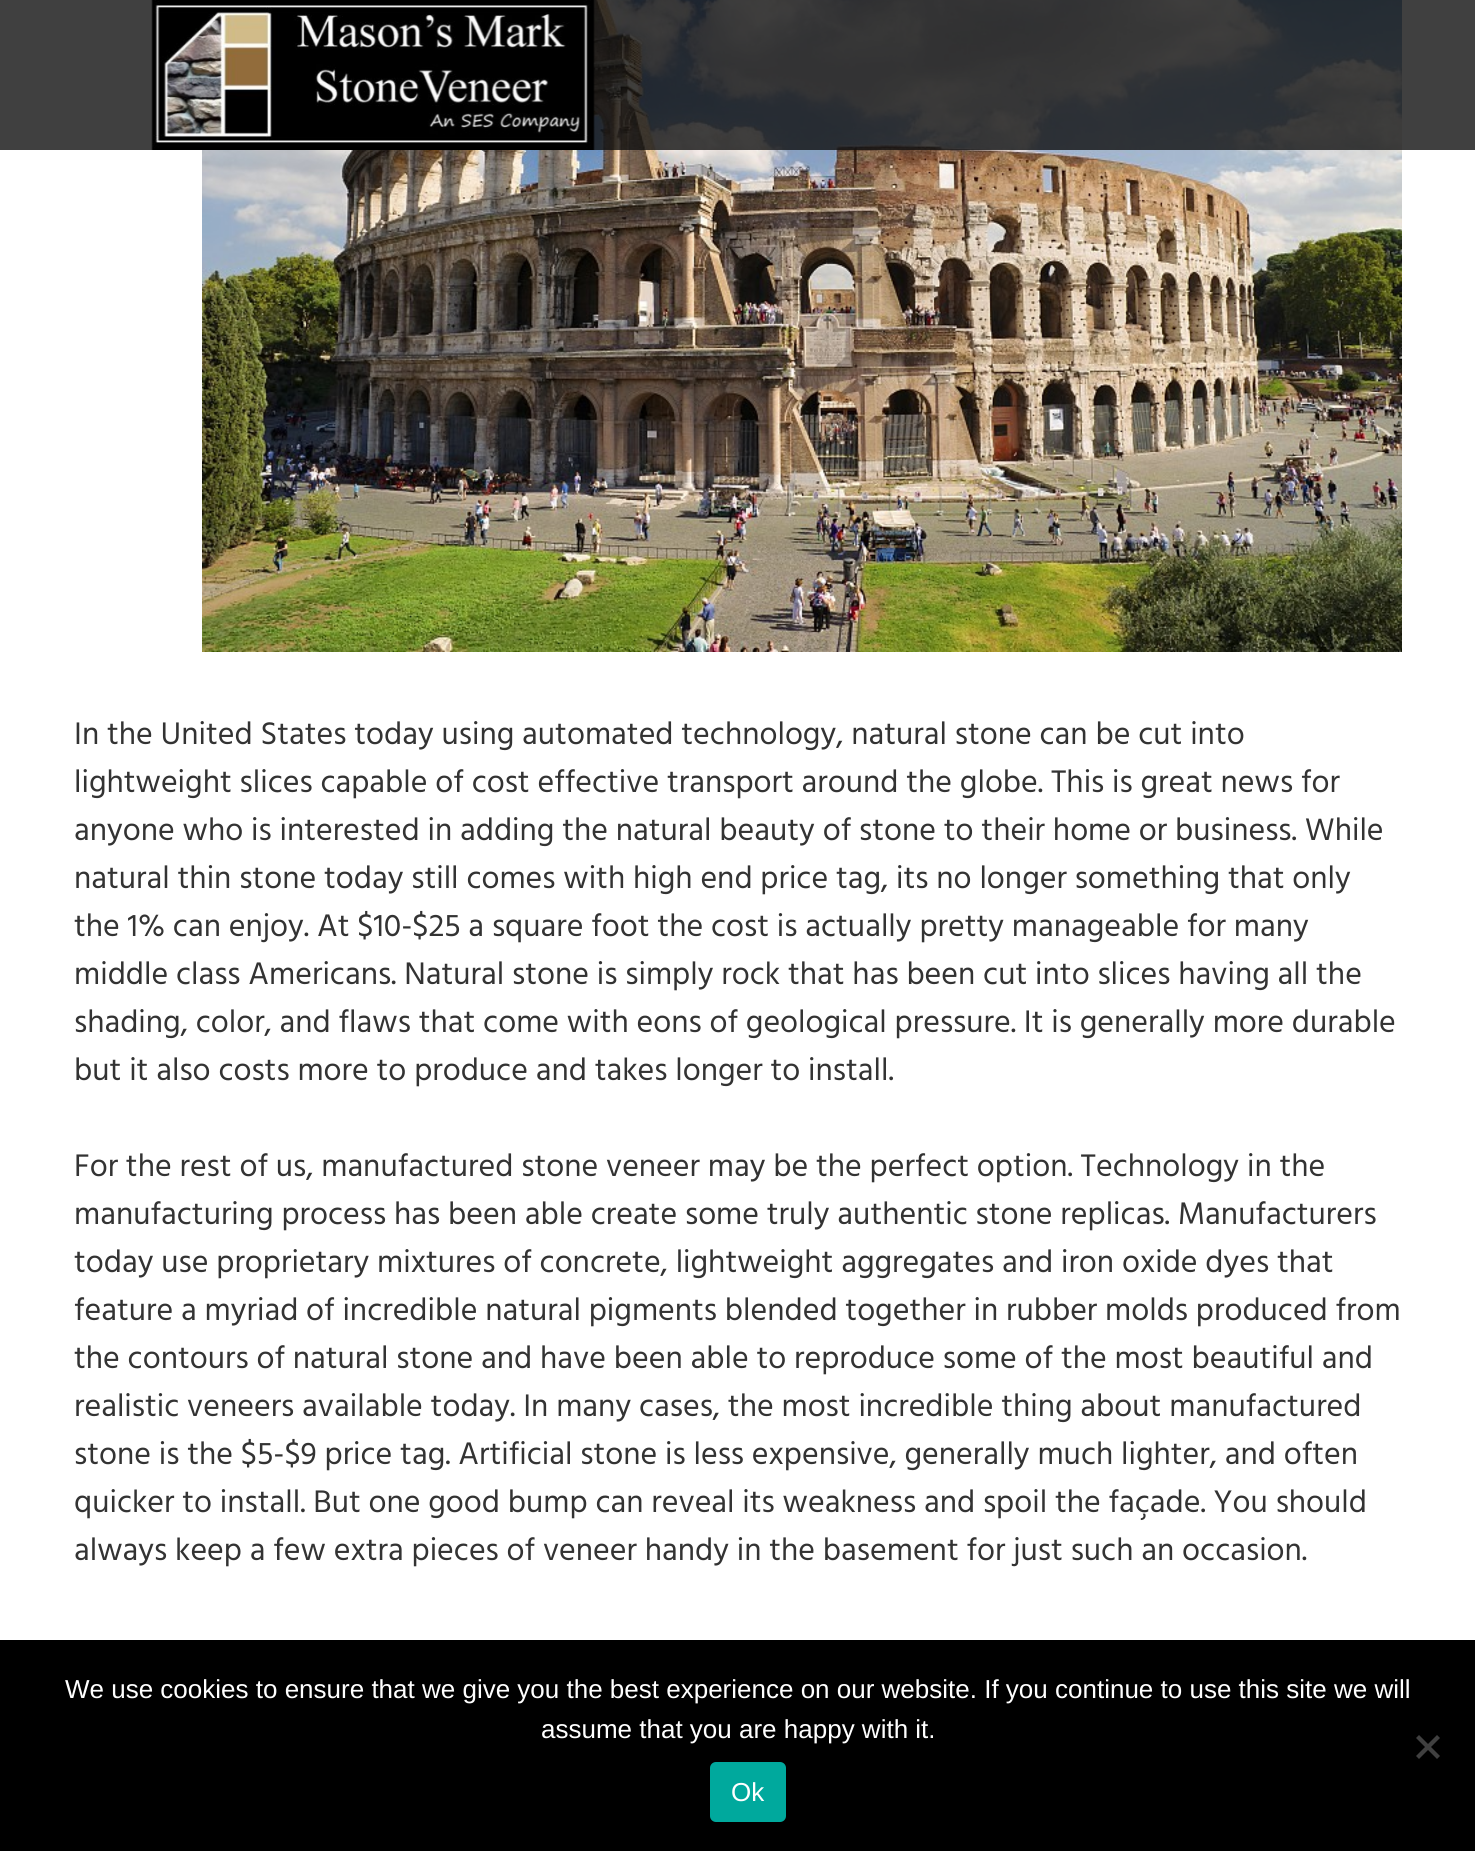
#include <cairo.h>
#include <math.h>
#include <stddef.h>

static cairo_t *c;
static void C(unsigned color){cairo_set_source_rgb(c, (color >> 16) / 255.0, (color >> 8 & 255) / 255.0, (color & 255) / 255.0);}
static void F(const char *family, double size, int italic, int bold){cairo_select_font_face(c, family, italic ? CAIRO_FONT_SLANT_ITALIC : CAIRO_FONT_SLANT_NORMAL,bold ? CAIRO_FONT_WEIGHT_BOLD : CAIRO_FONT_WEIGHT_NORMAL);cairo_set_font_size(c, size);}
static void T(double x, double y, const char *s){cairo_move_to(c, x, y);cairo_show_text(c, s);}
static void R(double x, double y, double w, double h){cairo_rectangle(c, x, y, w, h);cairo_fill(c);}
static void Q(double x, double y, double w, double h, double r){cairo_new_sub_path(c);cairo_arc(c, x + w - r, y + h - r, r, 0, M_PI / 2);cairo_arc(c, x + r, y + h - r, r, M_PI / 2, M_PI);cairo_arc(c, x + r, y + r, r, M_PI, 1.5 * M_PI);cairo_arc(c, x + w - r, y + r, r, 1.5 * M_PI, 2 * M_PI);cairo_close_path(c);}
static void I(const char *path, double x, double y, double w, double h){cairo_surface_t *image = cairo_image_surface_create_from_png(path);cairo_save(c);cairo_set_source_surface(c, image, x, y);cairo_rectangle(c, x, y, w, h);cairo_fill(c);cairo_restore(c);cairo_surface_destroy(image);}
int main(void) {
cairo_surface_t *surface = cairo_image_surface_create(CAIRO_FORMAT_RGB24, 1475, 1851);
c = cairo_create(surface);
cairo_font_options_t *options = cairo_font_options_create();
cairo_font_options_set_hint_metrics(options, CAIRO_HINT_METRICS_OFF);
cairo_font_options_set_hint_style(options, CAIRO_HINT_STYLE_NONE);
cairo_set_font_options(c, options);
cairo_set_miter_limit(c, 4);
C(0xffffff);
cairo_paint(c);
I("2.png",202,0,1200,652);
cairo_set_source_rgba(c,0.067,0.067,0.067,0.8);
R(0,0,1475,150);
I("1.png",151,0,444,150);
F("Hind",32,0,0);
C(0x333333);
T(74,744,"In the United States today using automated technology, natural stone can be cut into");
T(74,792,"lightweight slices capable of cost effective transport around the globe. This is great news for");
T(74,840,"anyone who is interested in adding the natural beauty of stone to their home or business. While");
T(74,888,"natural thin stone today still comes with high end price tag, its no longer something that only");
T(74,936,"the 1% can enjoy. At $10-$25 a square foot the cost is actually pretty manageable for many");
T(74,984,"middle class Americans. Natural stone is simply rock that has been cut into slices having all the");
T(74,1032,"shading, color, and flaws that come with eons of geological pressure. It is generally more durable");
T(74,1080,"but it also costs more to produce and takes longer to install.");
T(74,1176,"For the rest of us, manufactured stone veneer may be the perfect option. Technology in the");
T(74,1224,"manufacturing process has been able create some truly authentic stone replicas. Manufacturers");
T(74,1272,"today use proprietary mixtures of concrete, lightweight aggregates and iron oxide dyes that");
T(74,1320,"feature a myriad of incredible natural pigments blended together in rubber molds produced from");
T(74,1368,"the contours of natural stone and have been able to reproduce some of the most beautiful and");
T(74,1416,"realistic veneers available today. In many cases, the most incredible thing about manufactured");
T(74,1464,"stone is the $5-$9 price tag. Artificial stone is less expensive, generally much lighter, and often");
T(74,1512,"quicker to install. But one good bump can reveal its weakness and spoil the façade. You should");
T(74,1560,"always keep a few extra pieces of veneer handy in the basement for just such an occasion.");
C(0x000000);
R(0,1640,1475,211);
F("Liberation Sans",26,0,0);
C(0xffffff);
T(65,1698,"We use cookies to ensure that we give you the best experience on our website. If you continue to use this site we will");
T(541,1738,"assume that you are happy with it.");
C(0x404040);
cairo_new_path(c);
cairo_move_to(c,1437,1735);
cairo_line_to(c,1440,1738);
cairo_line_to(c,1419,1759);
cairo_line_to(c,1416,1756);
cairo_close_path(c);
cairo_fill(c);
cairo_new_path(c);
cairo_move_to(c,1416,1738);
cairo_line_to(c,1419,1735);
cairo_line_to(c,1440,1756);
cairo_line_to(c,1437,1759);
cairo_close_path(c);
cairo_fill(c);
C(0x00a99d);
Q(710,1762,76,60,6);
cairo_fill(c);
C(0xffffff);
T(731,1801,"Ok");
cairo_surface_write_to_png(surface, "o.png");
cairo_font_options_destroy(options);
cairo_destroy(c);
cairo_surface_destroy(surface);
return 0;
}
